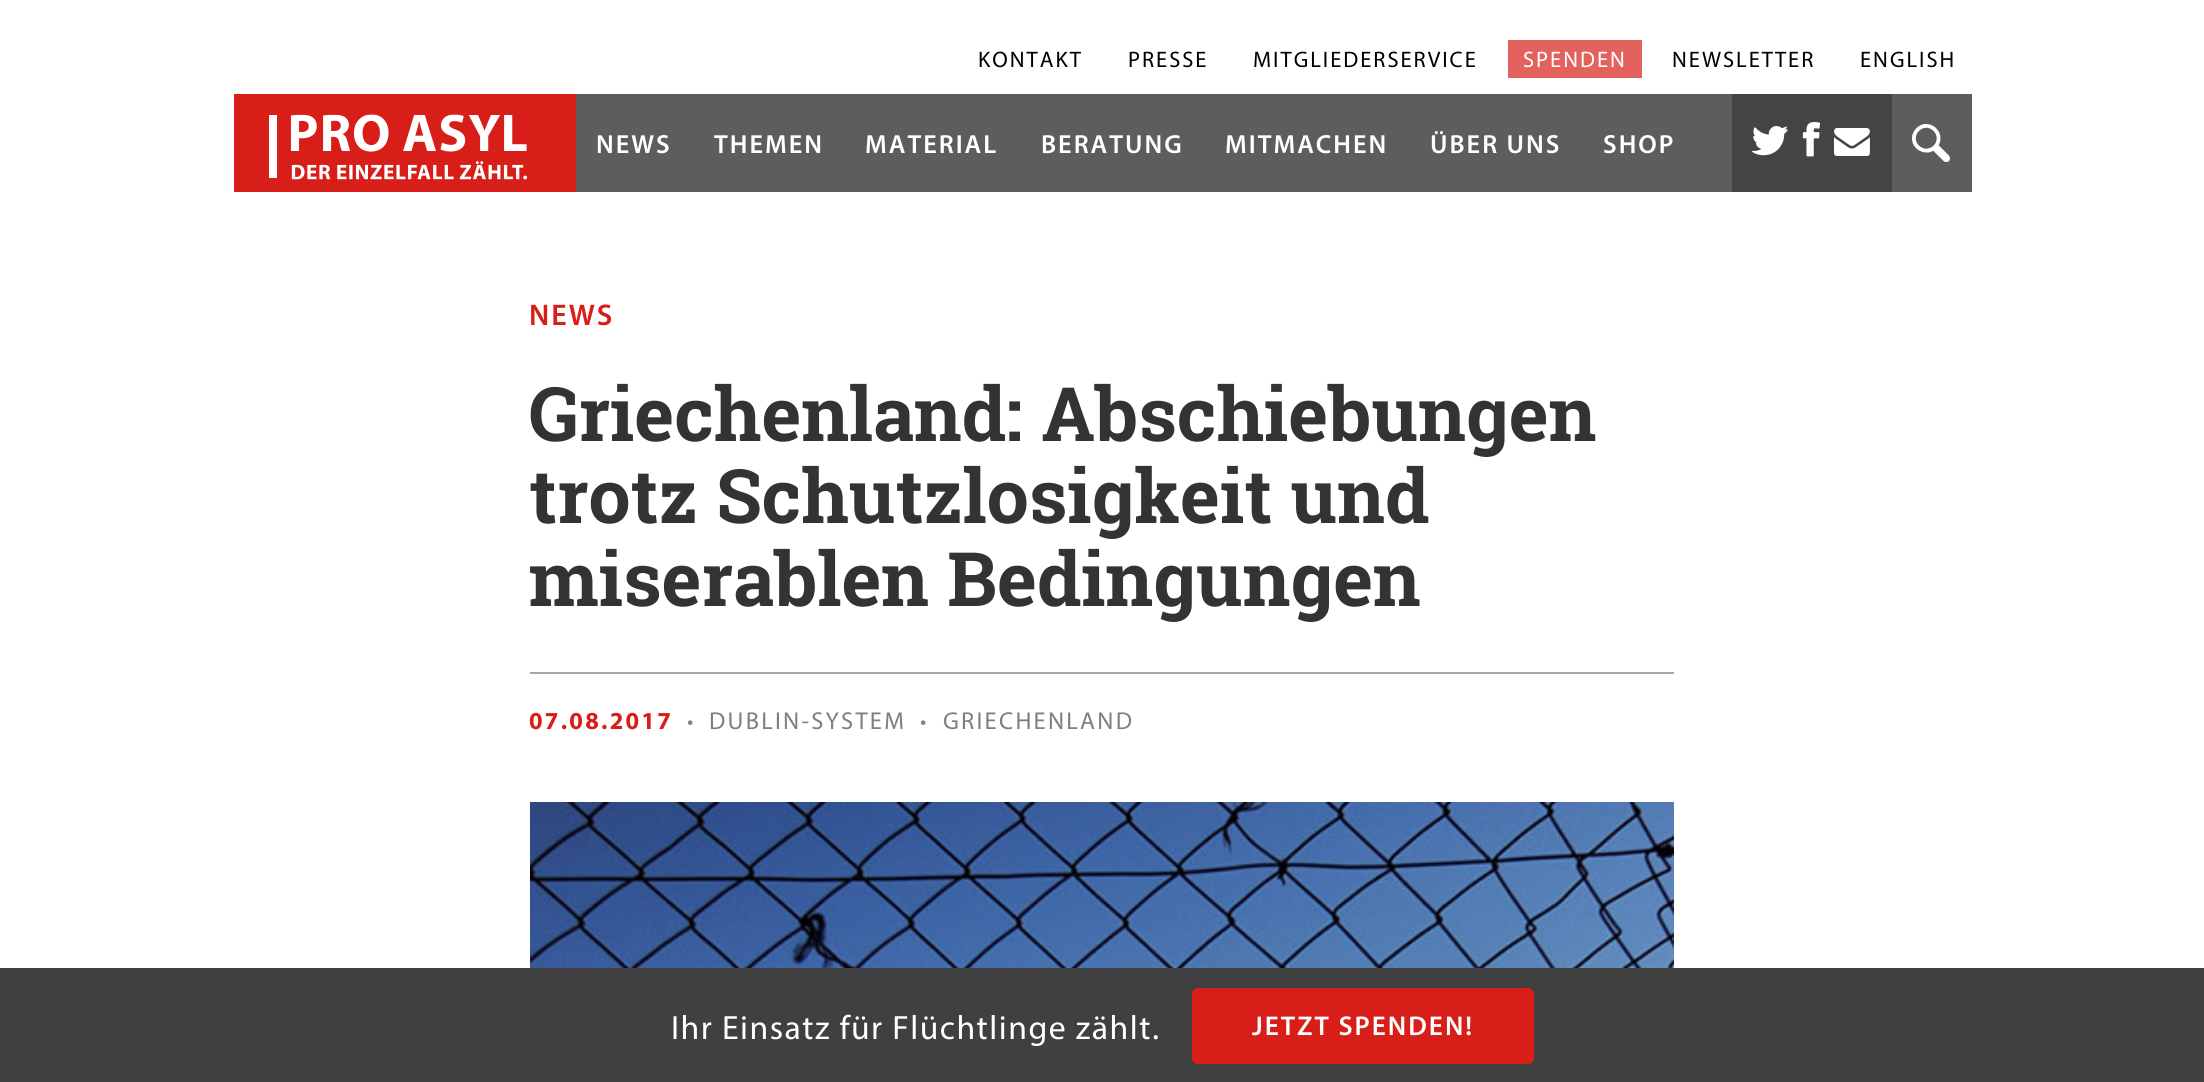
#include <cairo.h>
#include <math.h>
#include <stddef.h>

static cairo_t *c;
static void C(unsigned color){cairo_set_source_rgb(c, (color >> 16) / 255.0, (color >> 8 & 255) / 255.0, (color & 255) / 255.0);}
static void F(const char *family, double size, int italic, int bold){cairo_select_font_face(c, family, italic ? CAIRO_FONT_SLANT_ITALIC : CAIRO_FONT_SLANT_NORMAL,bold ? CAIRO_FONT_WEIGHT_BOLD : CAIRO_FONT_WEIGHT_NORMAL);cairo_set_font_size(c, size);}
static void T(double x, double y, const char *s){cairo_move_to(c, x, y);cairo_show_text(c, s);}
static void L(double x, double y, const char *s, double letter, double word){cairo_move_to(c, x, y);while (*s) {char ch[5] = {0};int n = 0;do ch[n++] = *s++; while ((*s & 0xC0) == 0x80);cairo_show_text(c, ch);cairo_rel_move_to(c, letter + word * (*ch == ' '), 0);}}
static void R(double x, double y, double w, double h){cairo_rectangle(c, x, y, w, h);cairo_fill(c);}
static void Q(double x, double y, double w, double h, double r){cairo_new_sub_path(c);cairo_arc(c, x + w - r, y + h - r, r, 0, M_PI / 2);cairo_arc(c, x + r, y + h - r, r, M_PI / 2, M_PI);cairo_arc(c, x + r, y + r, r, M_PI, 1.5 * M_PI);cairo_arc(c, x + w - r, y + r, r, 1.5 * M_PI, 2 * M_PI);cairo_close_path(c);}
static void I(const char *path, double x, double y, double w, double h){cairo_surface_t *image = cairo_image_surface_create_from_png(path);cairo_save(c);cairo_set_source_surface(c, image, x, y);cairo_rectangle(c, x, y, w, h);cairo_fill(c);cairo_restore(c);cairo_surface_destroy(image);}
int main(void) {
cairo_surface_t *surface = cairo_image_surface_create(CAIRO_FORMAT_RGB24, 2204, 1082);
c = cairo_create(surface);
cairo_font_options_t *options = cairo_font_options_create();
cairo_font_options_set_hint_metrics(options, CAIRO_HINT_METRICS_OFF);
cairo_font_options_set_hint_style(options, CAIRO_HINT_STYLE_NONE);
cairo_set_font_options(c, options);
cairo_set_miter_limit(c, 4);
C(0xffffff);
cairo_paint(c);
F("Myriad",22.5,0,0);
C(0x000000);
L(978,67,"KONTAKT",2,0);
L(1128,67,"PRESSE",2,0);
L(1253,67,"MITGLIEDERSERVICE",2,0);
C(0xe3625e);
R(1508,40,134,38);
C(0xffffff);
L(1523,67,"SPENDEN",2,0);
C(0x000000);
L(1672,67,"NEWSLETTER",2,0);
L(1860,67,"ENGLISH",2,0);
C(0x5d5d5d);
R(576,94,1396,98);
C(0xd71e19);
R(234,94,342,98);
I("1.png",269,114,258,66);
F("Myriad SemiBold",26.25,0,0);
C(0xffffff);
L(596,153,"NEWS",2,0);
L(714,153,"THEMEN",2,0);
L(865,153,"MATERIAL",2,0);
L(1041,153,"BERATUNG",2,0);
L(1225,153,"MITMACHEN",2,0);
L(1430,153,"ÜBER UNS",2,0);
L(1603,153,"SHOP",2,0);
C(0x444444);
R(1732,94,160,98);
I("2.png",1752,126,36,30);
I("3.png",1802,122,19,35);
I("4.png",1834,128,36,28);
I("5.png",1912,124,38,38);
C(0x404040);
R(0,968,2204,114);
F("Myriad",33.75,0,0);
C(0xffffff);
L(671,1039,"Ihr Einsatz für Flüchtlinge zählt.",1.5,0);
C(0xd71e19);
Q(1192,988,342,76,6);
cairo_fill(c);
F("Myriad SemiBold",27.25,0,0);
C(0xffffff);
L(1252,1035,"JETZT SPENDEN!",2,0);
F("Myriad SemiBold",30,0,0);
C(0xd71e19);
L(529,325,"NEWS",2,0);
F("Roboto Slab",75,0,1);
C(0x333333);
T(529,441,"Griechenland: Abschiebungen");
T(529,523,"trotz Schutzlosigkeit und");
T(529,606,"miserablen Bedingungen");
C(0xa5a5a5);
R(530,672,1144,2);
F("Myriad",24.5,0,1);
C(0xd71e19);
L(529,729,"07.08.2017",2.25,0);
C(0x7f7f7f);
L(687,729,"·",2.25,0);
F("Myriad",24.5,0,0);
L(709,729,"DUBLIN-SYSTEM",2.25,0);
F("Myriad",24.5,0,1);
L(920,729,"·",2.25,0);
F("Myriad",24.5,0,0);
L(943,729,"GRIECHENLAND",2.25,0);
I("6.png",530,802,1144,166);
cairo_surface_write_to_png(surface, "o.png");
cairo_font_options_destroy(options);
cairo_destroy(c);
cairo_surface_destroy(surface);
return 0;
}
